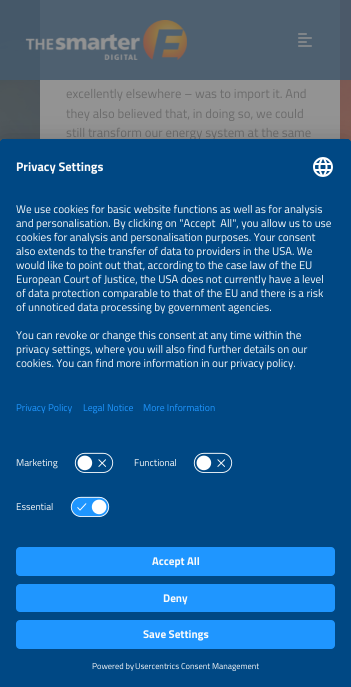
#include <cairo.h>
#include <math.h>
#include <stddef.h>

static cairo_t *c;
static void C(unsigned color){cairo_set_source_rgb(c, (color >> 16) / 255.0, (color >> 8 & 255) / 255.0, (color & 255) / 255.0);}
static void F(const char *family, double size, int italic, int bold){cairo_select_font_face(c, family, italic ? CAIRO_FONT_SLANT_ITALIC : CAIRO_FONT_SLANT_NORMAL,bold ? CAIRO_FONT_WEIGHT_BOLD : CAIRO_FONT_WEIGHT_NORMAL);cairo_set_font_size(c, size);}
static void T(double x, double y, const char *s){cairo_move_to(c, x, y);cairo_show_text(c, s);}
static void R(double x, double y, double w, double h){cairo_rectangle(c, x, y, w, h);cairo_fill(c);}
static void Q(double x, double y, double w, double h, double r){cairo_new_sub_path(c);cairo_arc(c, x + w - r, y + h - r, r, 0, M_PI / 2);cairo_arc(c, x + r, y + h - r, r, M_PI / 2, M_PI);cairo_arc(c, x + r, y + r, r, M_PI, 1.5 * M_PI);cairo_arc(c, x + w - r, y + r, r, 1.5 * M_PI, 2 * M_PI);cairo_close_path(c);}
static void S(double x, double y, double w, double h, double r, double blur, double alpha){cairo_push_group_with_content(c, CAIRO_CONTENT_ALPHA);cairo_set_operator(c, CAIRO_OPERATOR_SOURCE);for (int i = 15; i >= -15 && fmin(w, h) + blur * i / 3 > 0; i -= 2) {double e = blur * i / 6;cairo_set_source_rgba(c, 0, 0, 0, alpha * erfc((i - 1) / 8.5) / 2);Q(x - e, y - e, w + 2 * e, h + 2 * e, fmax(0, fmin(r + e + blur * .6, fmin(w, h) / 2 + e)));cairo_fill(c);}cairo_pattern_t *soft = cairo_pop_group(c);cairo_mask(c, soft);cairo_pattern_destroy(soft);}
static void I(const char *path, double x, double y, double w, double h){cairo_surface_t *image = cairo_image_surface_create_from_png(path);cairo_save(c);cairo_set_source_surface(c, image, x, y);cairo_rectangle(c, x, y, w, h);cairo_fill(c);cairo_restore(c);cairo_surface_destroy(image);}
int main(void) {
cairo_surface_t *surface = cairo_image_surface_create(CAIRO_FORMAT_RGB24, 351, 687);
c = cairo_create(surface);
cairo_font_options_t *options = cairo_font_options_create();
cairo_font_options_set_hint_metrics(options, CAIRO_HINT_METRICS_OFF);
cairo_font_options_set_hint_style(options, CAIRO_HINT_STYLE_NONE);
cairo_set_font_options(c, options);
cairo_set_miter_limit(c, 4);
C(0xffffff);
cairo_paint(c);
I("1.png",0,0,351,143);
C(0x939393);
R(40,0,300,139);
cairo_set_source_rgba(c,0.275,0.353,0.424,0.88);
R(0,0,351,80);
I("2.png",25,20,162,40);
I("3.png",298,33,14,14);
F("Titillium Web",12.75,0,0);
C(0x6b6b6b);
T(66,98,"excellently elsewhere – was to import it. And");
T(66,118,"they also believed that, in doing so, we could");
T(66,137,"still transform our energy system at the same");
C(0x000000);
S(0,159,351,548,4,14,.3);
S(0,144,351,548,4,13,.22);
C(0x004884);
cairo_new_path(c);
cairo_move_to(c,4,139);
cairo_line_to(c,347,139);
cairo_curve_to(c,349,139,351,141,351,143);
cairo_line_to(c,351,687);
cairo_line_to(c,0,687);
cairo_line_to(c,0,143);
cairo_curve_to(c,0,141,2,139,4,139);
cairo_close_path(c);
cairo_fill(c);
cairo_new_path(c);
cairo_move_to(c,4,139);
cairo_line_to(c,347,139);
cairo_curve_to(c,349,139,351,141,351,143);
cairo_line_to(c,351,535);
cairo_line_to(c,0,535);
cairo_line_to(c,0,143);
cairo_curve_to(c,0,141,2,139,4,139);
cairo_close_path(c);
cairo_fill(c);
cairo_new_path(c);
cairo_move_to(c,4,139);
cairo_line_to(c,347,139);
cairo_curve_to(c,349,139,351,141,351,143);
cairo_line_to(c,351,447);
cairo_line_to(c,0,447);
cairo_line_to(c,0,143);
cairo_curve_to(c,0,141,2,139,4,139);
cairo_close_path(c);
cairo_fill(c);
F("Titillium Web",12.5,0,1);
C(0xfafafa);
T(16,171,"Privacy Settings");
I("4.png",313,157,20,20);
F("Titillium Web",11.2,0,0);
T(16,213,"We use cookies for basic website functions as well as for analysis");
T(16,227,"and personalisation. By clicking on \"Accept  All\", you allow us to use");
T(16,241,"cookies for analysis and personalisation purposes. Your consent");
T(16,255,"also extends to the transfer of data to providers in the USA. We");
T(16,269,"would like to point out that, according to the case law of the EU");
T(16,283,"European Court of Justice, the USA does not currently have a level");
T(16,297,"of data protection comparable to that of the EU and there is a risk");
T(16,311,"of unnoticed data processing by government agencies.");
T(16,339,"You can revoke or change this consent at any time within the");
T(16,353,"privacy settings, where you will also find further details on our");
T(16,367,"cookies. You can find more information in our privacy policy.");
F("Titillium Web",9.75,0,0);
C(0x1f96ff);
T(16,411,"Privacy Policy");
T(83,411,"Legal Notice");
T(143,411,"More Information");
C(0xfafafa);
T(16,466,"Marketing");
I("5.png",74,452,40,21);
T(134,466,"Functional");
I("5.png",193,452,40,21);
T(16,510,"Essential");
I("6.png",70,496,40,21);
C(0x1f96ff);
Q(16,547,319,29,4);
cairo_fill(c);
F("Titillium Web",11.2,0,1);
C(0xfafafa);
T(152,565,"Accept All");
C(0x1f96ff);
Q(16,584,319,28,4);
cairo_fill(c);
C(0xfafafa);
T(163,602,"Deny");
C(0x1f96ff);
Q(16,620,319,29,4);
cairo_fill(c);
C(0xfafafa);
T(143,638,"Save Settings");
F("Titillium Web",8.4,0,0);
T(92,669,"Powered by");
T(135,669,"Usercentrics Consent Management");
cairo_surface_write_to_png(surface, "o.png");
cairo_font_options_destroy(options);
cairo_destroy(c);
cairo_surface_destroy(surface);
return 0;
}
